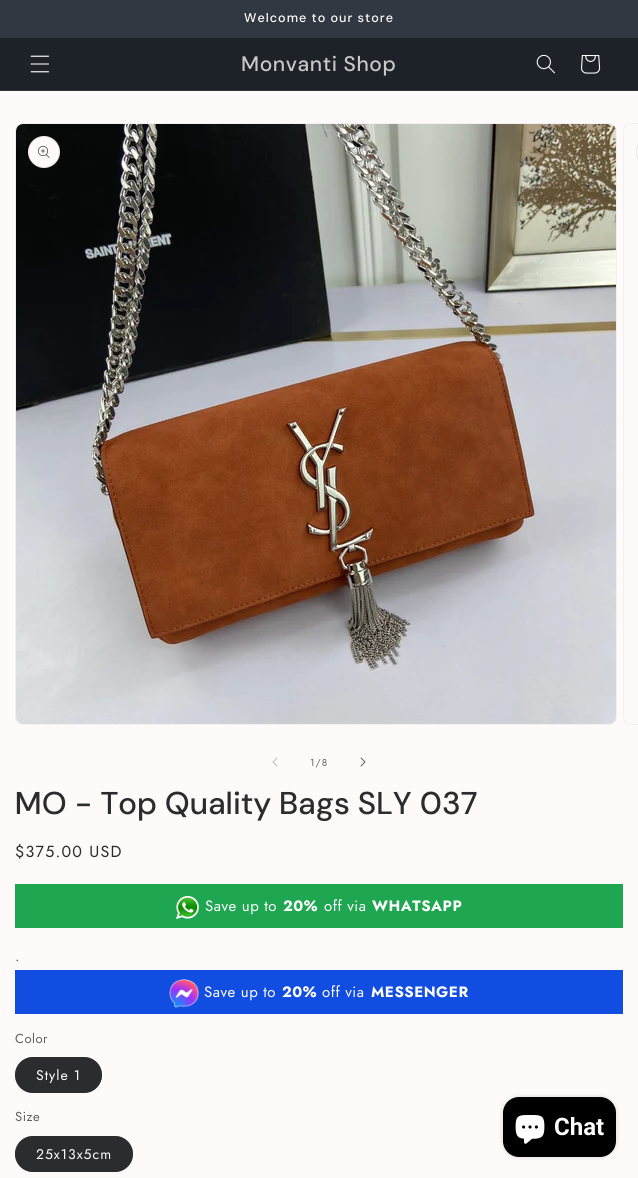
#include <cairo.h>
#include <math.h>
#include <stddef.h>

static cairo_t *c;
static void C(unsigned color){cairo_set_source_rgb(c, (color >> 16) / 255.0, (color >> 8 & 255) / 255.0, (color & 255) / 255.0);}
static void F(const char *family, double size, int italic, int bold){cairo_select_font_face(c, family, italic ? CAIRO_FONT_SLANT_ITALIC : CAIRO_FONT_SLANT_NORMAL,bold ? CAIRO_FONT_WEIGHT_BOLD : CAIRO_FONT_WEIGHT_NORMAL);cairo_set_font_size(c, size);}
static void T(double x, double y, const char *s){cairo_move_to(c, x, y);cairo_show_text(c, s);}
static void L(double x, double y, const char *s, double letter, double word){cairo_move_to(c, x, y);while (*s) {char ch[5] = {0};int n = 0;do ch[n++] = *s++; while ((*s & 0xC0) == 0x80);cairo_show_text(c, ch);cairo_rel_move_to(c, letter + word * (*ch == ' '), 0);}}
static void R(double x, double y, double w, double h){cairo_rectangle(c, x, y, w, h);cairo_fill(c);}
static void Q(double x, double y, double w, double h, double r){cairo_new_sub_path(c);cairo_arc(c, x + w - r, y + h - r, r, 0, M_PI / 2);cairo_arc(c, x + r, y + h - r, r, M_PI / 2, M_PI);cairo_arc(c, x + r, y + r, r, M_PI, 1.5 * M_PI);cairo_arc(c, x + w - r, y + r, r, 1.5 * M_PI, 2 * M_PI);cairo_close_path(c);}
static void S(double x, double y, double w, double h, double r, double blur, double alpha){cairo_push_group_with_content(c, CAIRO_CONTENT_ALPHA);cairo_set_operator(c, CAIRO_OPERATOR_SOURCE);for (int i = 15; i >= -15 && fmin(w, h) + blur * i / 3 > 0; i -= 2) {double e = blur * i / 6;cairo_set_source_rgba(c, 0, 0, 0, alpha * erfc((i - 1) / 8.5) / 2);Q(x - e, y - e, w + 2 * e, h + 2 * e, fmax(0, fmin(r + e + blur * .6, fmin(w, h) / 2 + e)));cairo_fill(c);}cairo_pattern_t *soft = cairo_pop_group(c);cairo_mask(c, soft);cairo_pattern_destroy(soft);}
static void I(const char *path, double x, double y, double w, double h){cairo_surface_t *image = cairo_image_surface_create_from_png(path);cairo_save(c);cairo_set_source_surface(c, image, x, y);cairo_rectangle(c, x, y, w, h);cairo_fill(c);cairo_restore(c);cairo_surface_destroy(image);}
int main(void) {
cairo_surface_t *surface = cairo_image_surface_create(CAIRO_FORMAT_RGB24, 638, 1178);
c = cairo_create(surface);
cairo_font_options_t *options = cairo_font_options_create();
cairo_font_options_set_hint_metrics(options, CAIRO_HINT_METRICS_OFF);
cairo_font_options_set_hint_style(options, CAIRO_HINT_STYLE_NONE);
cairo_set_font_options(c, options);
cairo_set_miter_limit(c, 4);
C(0xfffafa);
cairo_paint(c);
C(0x323841);
R(0,0,638,38);
F("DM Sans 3 Medium",12.6,0,0);
C(0xffffff);
L(244,22,"Welcome to our store",1,0);
C(0x1c2228);
R(0,38,638,52);
C(0x2e3439);
R(0,90,638,1);
I("1.png",30,55,20,18);
F("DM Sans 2 Medium",21,0,0);
C(0xc6c8c9);
L(241,71,"Monvanti Shop",.6,0);
I("2.png",536,54,19,20);
I("3.png",581,55,20,19);
Q(15.5,123.5,601,601,7.5);
C(0xf4f0f0);
cairo_set_line_width(c,1);
cairo_stroke(c);
I("4.png",16,124,600,600);
C(0xfffafa);
cairo_arc(c,44,152,16,0,2 * M_PI);
cairo_fill(c);
cairo_arc(c,44,152,15.5,0,2 * M_PI);
cairo_set_source_rgba(c,0.169,0.173,0.176,0.1);
cairo_stroke(c);
I("5.png",38,146,12,12);
Q(623.5,123.5,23,601,7.5);
C(0xf4f0f0);
cairo_stroke(c);
Q(636.5,136.5,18,31,15.5);
C(0xeae5e6);
cairo_stroke(c);
I("6.png",272,757,6,10);
F("Jost",10,0,0);
C(0x606060);
L(310,766,"1/8",1,0);
I("7.png",360,757,6,10);
F("DM Sans Medium",31.5,0,0);
C(0x2b2c2d);
L(15,814,"MO - Top Quality Bags SLY 037",.6,0);
F("Jost",16,0,0);
L(15,857,"$375.00 USD",1.25,0);
C(0x1ea651);
R(15,884,608,44);
I("8.png",176,896,23,24);
F("Jost",15,0,0);
C(0xffffff);
L(205,911,"Save up to",.5,0);
F("Jost",15,0,1);
L(283,911,"20%",.5,0);
F("Jost",15,0,0);
L(324,911,"off via",.5,0);
F("Jost",15,0,1);
L(372,911,"WHATSAPP",.5,0);
F("Jost",15,0,0);
C(0x606060);
L(15,961,".",.5,0);
C(0x114de1);
R(15,970,608,44);
I("9.png",169,979,30,29);
C(0xffffff);
L(204,997,"Save up to",.5,0);
F("Jost",15,0,1);
L(282,997,"20%",.5,0);
F("Jost",15,0,0);
L(322,997,"off via",.5,0);
F("Jost",15,0,1);
L(371,997,"MESSENGER",.5,0);
F("Jost",13,0,0);
C(0x606060);
L(15,1043,"Color",.5,0);
C(0x2b2c2d);
Q(15,1057,87,36,18);
cairo_fill(c);
Q(15.5,1057.5,86,35,17.5);
cairo_set_source_rgba(c,0.169,0.173,0.176,0.55);
cairo_stroke(c);
F("Jost",14,0,0);
C(0xffffff);
L(36,1080,"Style 1",1,0);
F("Jost",13,0,0);
C(0x606060);
L(15,1121,"Size",.5,0);
C(0x2b2c2d);
Q(15,1136,118,36,18);
cairo_fill(c);
Q(15.5,1136.5,117,35,17.5);
cairo_set_source_rgba(c,0.169,0.173,0.176,0.55);
cairo_stroke(c);
F("Jost",14,0,0);
C(0xffffff);
L(36,1159,"25x13x5cm",1,0);
C(0x000000);
S(503,1097,113,60,16,2.5,.15);
C(0x000000);
Q(503,1097,113,60,16);
cairo_fill(c);
I("10.png",515,1115,30,29);
F("Roboto",24,0,1);
C(0xffffff);
T(554,1135,"Chat");
cairo_surface_write_to_png(surface, "o.png");
cairo_font_options_destroy(options);
cairo_destroy(c);
cairo_surface_destroy(surface);
return 0;
}
